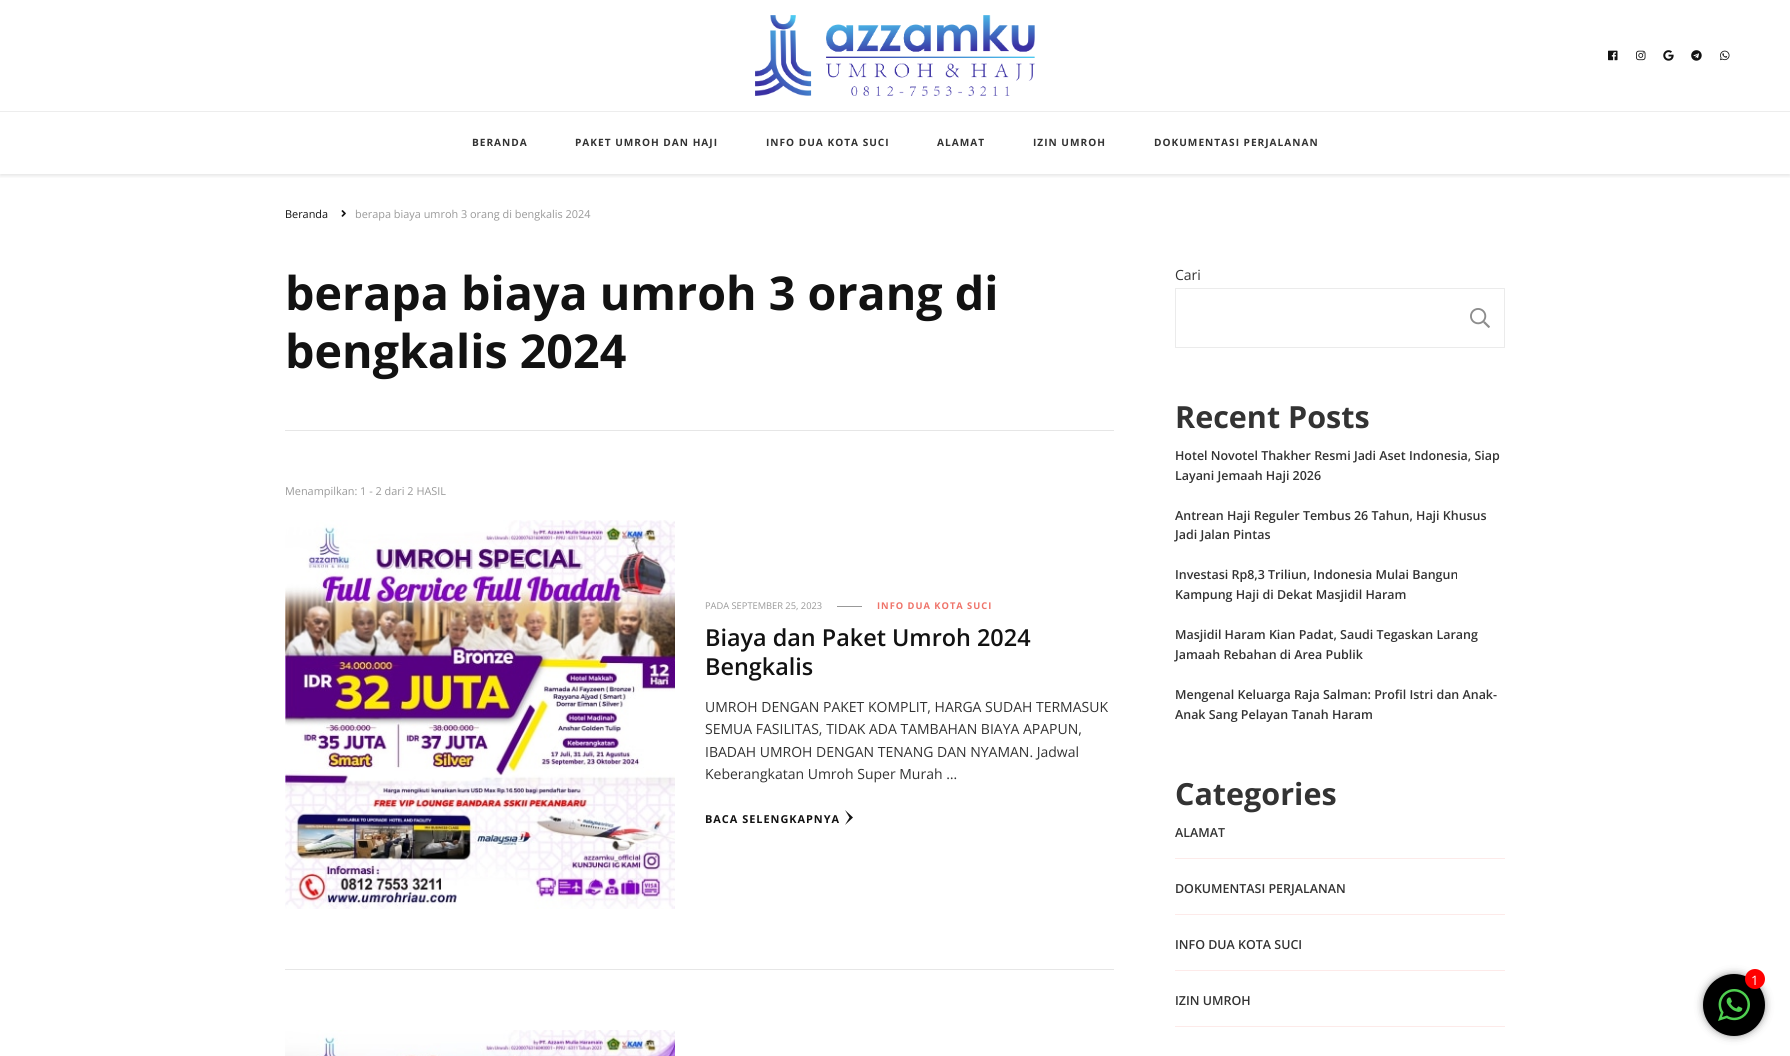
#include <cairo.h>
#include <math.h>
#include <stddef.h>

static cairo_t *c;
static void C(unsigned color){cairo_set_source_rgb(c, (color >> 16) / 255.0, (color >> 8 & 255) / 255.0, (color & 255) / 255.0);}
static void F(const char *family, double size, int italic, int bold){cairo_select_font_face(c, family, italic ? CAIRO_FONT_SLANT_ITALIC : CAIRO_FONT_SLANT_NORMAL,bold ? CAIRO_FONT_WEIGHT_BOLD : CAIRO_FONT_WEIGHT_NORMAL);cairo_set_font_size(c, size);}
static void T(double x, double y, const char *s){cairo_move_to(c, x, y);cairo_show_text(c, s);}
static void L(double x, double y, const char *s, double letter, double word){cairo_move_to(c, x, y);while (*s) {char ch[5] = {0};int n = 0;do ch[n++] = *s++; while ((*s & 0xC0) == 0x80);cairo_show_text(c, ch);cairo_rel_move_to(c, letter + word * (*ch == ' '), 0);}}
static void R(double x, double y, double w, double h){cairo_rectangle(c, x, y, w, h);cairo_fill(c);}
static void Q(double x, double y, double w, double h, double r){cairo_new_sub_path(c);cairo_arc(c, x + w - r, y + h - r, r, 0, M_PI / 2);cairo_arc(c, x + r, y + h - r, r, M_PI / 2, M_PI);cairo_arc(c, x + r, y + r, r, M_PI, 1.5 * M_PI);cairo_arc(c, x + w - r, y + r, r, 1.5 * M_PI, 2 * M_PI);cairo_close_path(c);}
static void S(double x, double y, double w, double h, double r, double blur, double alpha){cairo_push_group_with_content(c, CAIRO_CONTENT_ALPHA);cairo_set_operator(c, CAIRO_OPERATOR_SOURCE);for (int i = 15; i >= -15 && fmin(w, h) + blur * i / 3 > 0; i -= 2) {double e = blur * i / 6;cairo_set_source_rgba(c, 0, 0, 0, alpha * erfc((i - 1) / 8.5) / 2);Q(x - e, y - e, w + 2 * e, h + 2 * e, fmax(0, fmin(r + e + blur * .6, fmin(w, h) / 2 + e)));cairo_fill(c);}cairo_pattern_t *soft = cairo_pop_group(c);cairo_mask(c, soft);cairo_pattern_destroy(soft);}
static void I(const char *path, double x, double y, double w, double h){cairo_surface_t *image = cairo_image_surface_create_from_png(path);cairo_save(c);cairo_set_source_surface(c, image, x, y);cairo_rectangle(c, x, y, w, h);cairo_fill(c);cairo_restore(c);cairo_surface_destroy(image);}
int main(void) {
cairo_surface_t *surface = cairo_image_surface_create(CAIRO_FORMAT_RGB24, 1790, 1056);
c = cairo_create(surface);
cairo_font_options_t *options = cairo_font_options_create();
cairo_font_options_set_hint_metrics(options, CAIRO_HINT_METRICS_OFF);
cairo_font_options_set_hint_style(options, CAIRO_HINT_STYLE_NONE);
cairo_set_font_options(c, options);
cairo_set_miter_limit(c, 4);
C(0xffffff);
cairo_paint(c);
cairo_save(c);
cairo_rectangle(c,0,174,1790,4);
cairo_clip(c);
C(0x000000);
S(0,2,1790,174,0,2,.1);
cairo_restore(c);
I("1.png",755,15,280,81);
I("2.png",1608,50,10,11);
I("3.png",1636,50,10,11);
I("4.png",1663,50,11,11);
I("5.png",1691,50,11,11);
I("6.png",1720,50,10,11);
C(0xededed);
R(0,111,1790,1);
F("Open Sans",10.1,0,1);
C(0x333333);
L(472,146,"BERANDA",1,0);
L(575,146,"PAKET UMROH DAN HAJI",1,0);
L(766,146,"INFO DUA KOTA SUCI",1,0);
L(937,146,"ALAMAT",1,0);
L(1033,146,"IZIN UMROH",1,0);
L(1154,146,"DOKUMENTASI PERJALANAN",1,0);
F("Open Sans",10.9,0,0);
C(0x121212);
T(285,218,"Beranda");
I("7.png",341,210,5,7);
C(0x999999);
T(355,218,"berapa biaya umroh 3 orang di bengkalis 2024");
C(0xe6e6e6);
R(285,430,829,1);
F("Open Sans",46.6,0,1);
C(0x121212);
T(285,310,"berapa biaya umroh 3 orang di");
T(285,368,"bengkalis 2024");
F("Open Sans",10.9,0,0);
C(0x999999);
T(285,495,"Menampilkan: 1 - 2 dari 2 HASIL");
C(0xe6e6e6);
R(285,969,829,1);
I("8.png",285,520,390,389);
F("Open Sans",9.3,0,0);
C(0x999999);
T(705,609,"PADA SEPTEMBER 25, 2023");
R(837,606,25,1);
F("Open Sans",9.3,0,1);
C(0xef746a);
L(877,609,"INFO DUA KOTA SUCI",1,0);
F("Open Sans SemiBold",23.4,0,0);
C(0x121212);
T(705,646,"Biaya dan Paket Umroh 2024");
T(705,675,"Bengkalis");
F("Open Sans",14,0,0);
C(0x333333);
T(705,712,"UMROH DENGAN PAKET KOMPLIT, HARGA SUDAH TERMASUK");
T(705,734,"SEMUA FASILITAS, TIDAK ADA TAMBAHAN BIAYA APAPUN,");
T(705,757,"IBADAH UMROH DENGAN TENANG DAN NYAMAN. Jadwal");
T(705,779,"Keberangkatan Umroh Super Murah …");
F("Open Sans",10.9,0,1);
C(0x121212);
L(705,823,"BACA SELENGKAPNYA",1,0);
cairo_new_path(c);
cairo_move_to(c,853,817.5);
cairo_line_to(c,845,825);
cairo_line_to(c,849.5,817.5);
cairo_line_to(c,845,810);
cairo_close_path(c);
cairo_fill(c);
I("9.png",285,1030,390,26);
F("Open Sans",14,0,0);
C(0x333333);
T(1175,280,"Cari");
C(0xebebeb);
cairo_new_path(c);
cairo_move_to(c,1175,288);
cairo_line_to(c,1455,288);
cairo_line_to(c,1455,289);
cairo_line_to(c,1176,289);
cairo_close_path(c);
cairo_fill(c);
cairo_new_path(c);
cairo_move_to(c,1455,348);
cairo_line_to(c,1175,348);
cairo_line_to(c,1176,347);
cairo_line_to(c,1455,347);
cairo_close_path(c);
cairo_fill(c);
cairo_set_source_rgba(c,0.2,0.2,0.2,0.1);
cairo_new_path(c);
cairo_move_to(c,1175,348);
cairo_line_to(c,1175,288);
cairo_line_to(c,1176,289);
cairo_line_to(c,1176,347);
cairo_close_path(c);
cairo_fill(c);
C(0xebebeb);
cairo_new_path(c);
cairo_move_to(c,1455,288);
cairo_line_to(c,1505,288);
cairo_line_to(c,1504,289);
cairo_line_to(c,1455,289);
cairo_close_path(c);
cairo_fill(c);
cairo_set_source_rgba(c,0.2,0.2,0.2,0.1);
cairo_new_path(c);
cairo_move_to(c,1505,288);
cairo_line_to(c,1505,348);
cairo_line_to(c,1504,347);
cairo_line_to(c,1504,289);
cairo_close_path(c);
cairo_fill(c);
cairo_new_path(c);
cairo_move_to(c,1505,348);
cairo_line_to(c,1455,348);
cairo_line_to(c,1455,347);
cairo_line_to(c,1504,347);
cairo_close_path(c);
cairo_fill(c);
I("10.png",1470,308,20,20);
F("Open Sans",30.5,0,1);
C(0x333333);
T(1175,428,"Recent Posts");
F("Open Sans SemiBold",12.45,0,0);
T(1175,460,"Hotel Novotel Thakher Resmi Jadi Aset Indonesia, Siap");
T(1175,480,"Layani Jemaah Haji 2026");
T(1175,520,"Antrean Haji Reguler Tembus 26 Tahun, Haji Khusus");
T(1175,539,"Jadi Jalan Pintas");
T(1175,579,"Investasi Rp8,3 Triliun, Indonesia Mulai Bangun");
T(1175,599,"Kampung Haji di Dekat Masjidil Haram");
T(1175,639,"Masjidil Haram Kian Padat, Saudi Tegaskan Larang");
T(1175,659,"Jamaah Rebahan di Area Publik");
T(1175,699,"Mengenal Keluarga Raja Salman: Profil Istri dan Anak-");
T(1175,719,"Anak Sang Pelayan Tanah Haram");
F("Open Sans",30.5,0,1);
T(1175,805,"Categories");
C(0xfdeae9);
R(1175,858,330,1);
F("Open Sans SemiBold",12.45,0,0);
C(0x333333);
T(1175,837,"ALAMAT");
C(0xfdeae9);
R(1175,914,330,1);
C(0x333333);
T(1175,893,"DOKUMENTASI PERJALANAN");
C(0xfdeae9);
R(1175,970,330,1);
C(0x333333);
T(1175,949,"INFO DUA KOTA SUCI");
C(0xfdeae9);
R(1175,1026,330,1);
C(0x333333);
T(1175,1005,"IZIN UMROH");
C(0x333333);
S(1706,977,56,56,28,5,1);
C(0x000000);
cairo_arc(c,1734,1005,31,0,2 * M_PI);
cairo_fill(c);
C(0xff0000);
cairo_arc(c,1755,979,10,0,2 * M_PI);
cairo_fill(c);
F("Open Sans",13,0,0);
C(0xffffff);
T(1751,985,"1");
I("11.png",1718,989,32,32);
cairo_surface_write_to_png(surface, "o.png");
cairo_font_options_destroy(options);
cairo_destroy(c);
cairo_surface_destroy(surface);
return 0;
}
